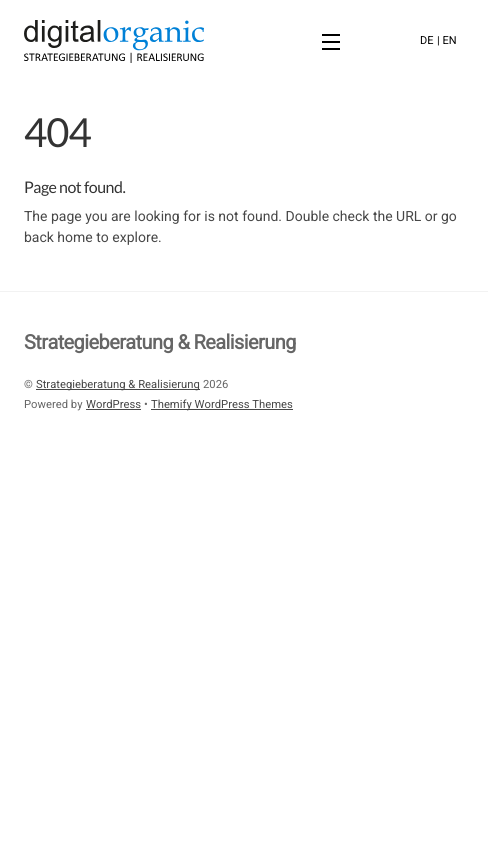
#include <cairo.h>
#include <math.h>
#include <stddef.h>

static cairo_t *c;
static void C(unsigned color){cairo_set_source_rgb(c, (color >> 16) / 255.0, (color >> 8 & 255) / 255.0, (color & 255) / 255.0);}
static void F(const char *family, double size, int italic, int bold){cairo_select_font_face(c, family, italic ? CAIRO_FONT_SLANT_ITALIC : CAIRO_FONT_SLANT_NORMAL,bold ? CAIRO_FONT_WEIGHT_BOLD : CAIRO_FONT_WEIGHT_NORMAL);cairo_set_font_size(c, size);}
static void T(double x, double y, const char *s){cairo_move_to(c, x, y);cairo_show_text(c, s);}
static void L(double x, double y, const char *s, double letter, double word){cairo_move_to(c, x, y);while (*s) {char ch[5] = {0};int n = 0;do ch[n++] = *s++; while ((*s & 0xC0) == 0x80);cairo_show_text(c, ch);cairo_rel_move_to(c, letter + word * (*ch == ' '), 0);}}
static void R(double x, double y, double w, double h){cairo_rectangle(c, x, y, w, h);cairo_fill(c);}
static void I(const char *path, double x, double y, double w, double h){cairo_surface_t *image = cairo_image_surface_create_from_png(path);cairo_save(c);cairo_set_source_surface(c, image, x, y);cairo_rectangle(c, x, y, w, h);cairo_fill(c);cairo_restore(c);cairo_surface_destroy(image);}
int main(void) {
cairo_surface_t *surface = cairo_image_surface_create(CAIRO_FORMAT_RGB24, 488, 862);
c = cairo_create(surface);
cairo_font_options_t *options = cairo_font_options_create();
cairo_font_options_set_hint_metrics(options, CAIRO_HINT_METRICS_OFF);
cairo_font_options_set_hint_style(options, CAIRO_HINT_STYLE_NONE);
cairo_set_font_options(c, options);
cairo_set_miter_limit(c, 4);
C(0xffffff);
cairo_paint(c);
I("1.png",24,20,180,43);
C(0x000000);
R(322,48,18,2);
R(322,34,18,2);
R(322,41,18,2);
F("Roboto",11,0,0);
T(420,44,"DE");
T(437,44,"| EN");
F("Lato",40,0,0);
C(0x333333);
L(24,147,"404",-1,0);
F("Lato",16,0,0);
L(24,193,"Page not found.",-.5,0);
F("Roboto",14,0,0);
C(0x474747);
T(24,221,"The page you are looking for is not found. Double check the URL or go");
T(24,242,"back home to explore.");
C(0xf2f2f2);
R(0,291,488,1);
F("Roboto",20,0,1);
C(0x666666);
L(24,349,"Strategieberatung & Realisierung",-.6,0);
F("Roboto",11.25,0,0);
T(24,388,"©");
C(0x474747);
R(36,389,164,1);
T(36,388,"Strategieberatung & Realisierung");
C(0x666666);
T(203,388,"2026");
T(24,408,"Powered by");
C(0x474747);
T(86,408,"WordPress");
R(86,409,55,1);
C(0x666666);
T(144,408,"•");
C(0x474747);
R(151,409,142,1);
T(151,408,"Themify WordPress Themes");
cairo_surface_write_to_png(surface, "o.png");
cairo_font_options_destroy(options);
cairo_destroy(c);
cairo_surface_destroy(surface);
return 0;
}
